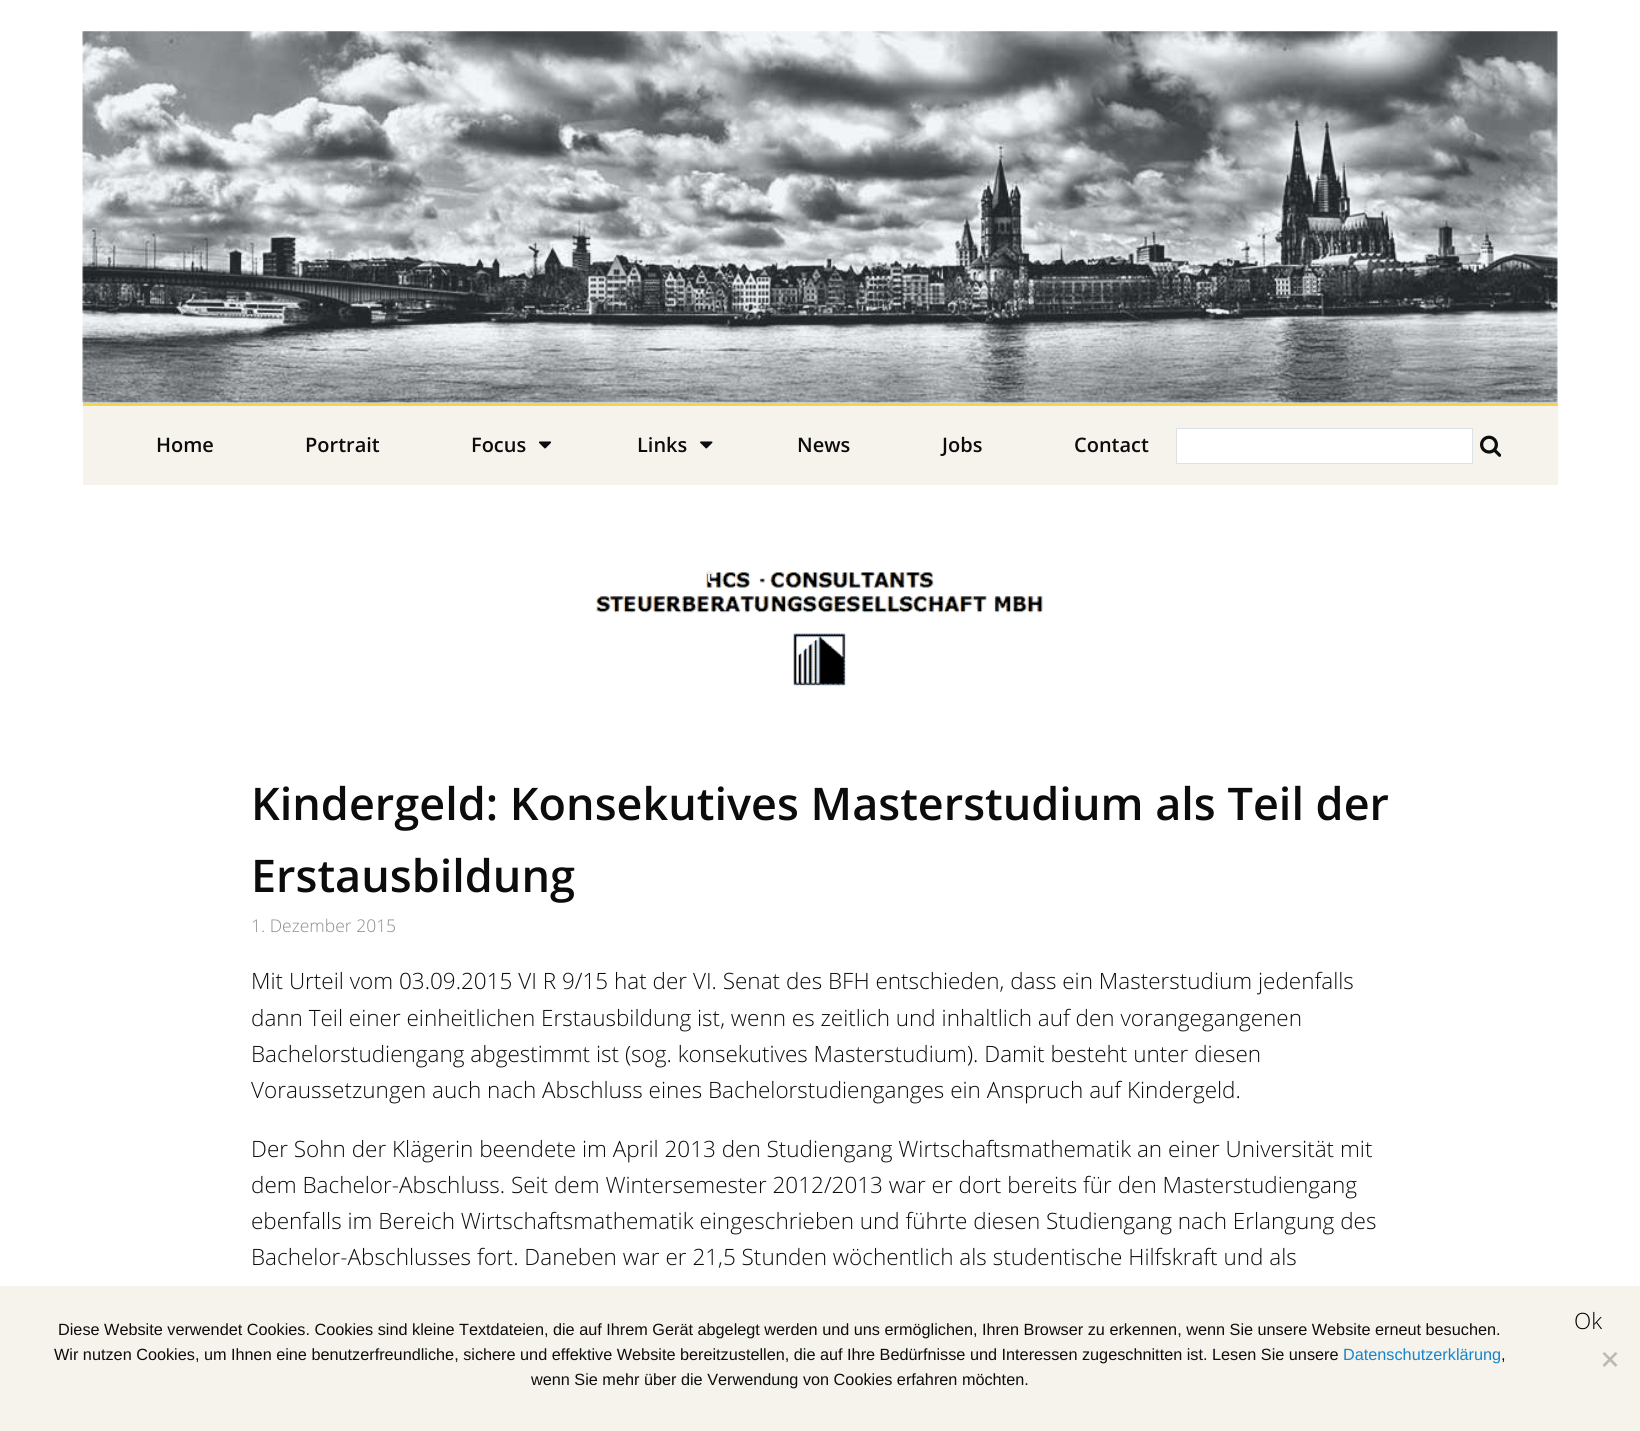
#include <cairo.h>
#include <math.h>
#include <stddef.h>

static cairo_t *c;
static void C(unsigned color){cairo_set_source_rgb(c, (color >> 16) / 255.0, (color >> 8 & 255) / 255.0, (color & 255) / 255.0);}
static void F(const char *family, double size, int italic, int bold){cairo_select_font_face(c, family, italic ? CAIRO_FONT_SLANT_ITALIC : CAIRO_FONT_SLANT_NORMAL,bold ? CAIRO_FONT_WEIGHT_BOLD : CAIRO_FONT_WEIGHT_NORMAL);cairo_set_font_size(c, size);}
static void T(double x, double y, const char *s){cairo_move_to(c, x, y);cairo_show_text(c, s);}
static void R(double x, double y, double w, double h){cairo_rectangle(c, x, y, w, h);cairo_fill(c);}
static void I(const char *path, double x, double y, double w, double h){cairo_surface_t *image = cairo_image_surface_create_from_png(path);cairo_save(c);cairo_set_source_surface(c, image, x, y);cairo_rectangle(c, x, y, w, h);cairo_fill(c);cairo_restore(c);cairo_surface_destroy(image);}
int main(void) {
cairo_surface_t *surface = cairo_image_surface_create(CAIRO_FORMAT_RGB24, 1640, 1431);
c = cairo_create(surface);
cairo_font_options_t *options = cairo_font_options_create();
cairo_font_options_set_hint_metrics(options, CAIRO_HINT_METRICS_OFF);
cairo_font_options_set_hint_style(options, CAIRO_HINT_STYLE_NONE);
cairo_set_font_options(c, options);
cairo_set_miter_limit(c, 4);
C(0xffffff);
cairo_paint(c);
I("1.png",82,31,1476,372);
C(0xf5f3eb);
R(83,406,1475,79);
C(0xf6d44b);
R(83,403,1475,3);
F("Open Sans SemiBold",20,0,0);
C(0x0c0c0d);
T(156,452,"Home");
T(305,452,"Portrait");
I("2.png",539,441,12,8);
T(471,452,"Focus");
I("3.png",700,441,13,8);
T(637,452,"Links");
I("5.png",596,572,447,115);
C(0xefefef);
T(706,583,"t");
C(0x0c0c0d);
T(797,452,"News");
T(942,452,"Jobs");
T(1074,452,"Contact");
C(0xffffff);
cairo_rectangle(c,1176.5,428.5,296,35);
cairo_fill_preserve(c);
C(0xdae2e5);
cairo_set_line_width(c,1);
cairo_stroke(c);
I("4.png",1480,435,21,22);
F("Open Sans SemiBold",45,0,0);
C(0x0c0c0d);
T(251,820,"Kindergeld: Konsekutives Masterstudium als Teil der");
T(251,892,"Erstausbildung");
F("Open Sans Light",17.5,0,0);
C(0x8c8c8c);
T(251,932,"1. Dezember 2015");
F("Open Sans Light",22.5,0,0);
C(0x0c0c0d);
T(251,989,"Mit Urteil vom 03.09.2015 VI R 9/15 hat der VI. Senat des BFH entschieden, dass ein Masterstudium jedenfalls");
T(251,1026,"dann Teil einer einheitlichen Erstausbildung ist, wenn es zeitlich und inhaltlich auf den vorangegangenen");
T(251,1062,"Bachelorstudiengang abgestimmt ist (sog. konsekutives Masterstudium). Damit besteht unter diesen");
T(251,1098,"Voraussetzungen auch nach Abschluss eines Bachelorstudienganges ein Anspruch auf Kindergeld.");
T(251,1157,"Der Sohn der Klägerin beendete im April 2013 den Studiengang Wirtschaftsmathematik an einer Universität mit");
T(251,1193,"dem Bachelor-Abschluss. Seit dem Wintersemester 2012/2013 war er dort bereits für den Masterstudiengang");
T(251,1229,"ebenfalls im Bereich Wirtschaftsmathematik eingeschrieben und führte diesen Studiengang nach Erlangung des");
T(251,1265,"Bachelor-Abschlusses fort. Daneben war er 21,5 Stunden wöchentlich als studentische Hilfskraft und als");
C(0xf5f3eb);
R(0,1286,1640,145);
C(0x000000);
T(1574,1329,"Ok");
F("Liberation Sans",16.25,0,0);
C(0x0c0c0d);
T(58,1335,"Diese Website verwendet Cookies. Cookies sind kleine Textdateien, die auf Ihrem Gerät abgelegt werden und uns ermöglichen, Ihren Browser zu erkennen, wenn Sie unsere Website erneut besuchen.");
T(54,1360,"Wir nutzen Cookies, um Ihnen eine benutzerfreundliche, sichere und effektive Website bereitzustellen, die auf Ihre Bedürfnisse und Interessen zugeschnitten ist. Lesen Sie unsere");
C(0x1684cd);
T(1343,1360,"Datenschutzerklärung");
C(0x0c0c0d);
T(1501,1360,",");
T(531,1385,"wenn Sie mehr über die Verwendung von Cookies erfahren möchten.");
C(0xbbbab6);
cairo_new_path(c);
cairo_move_to(c,1615.5,1352);
cairo_line_to(c,1617.5,1353.5);
cairo_line_to(c,1604.5,1367);
cairo_line_to(c,1602.5,1365);
cairo_close_path(c);
cairo_fill(c);
cairo_new_path(c);
cairo_move_to(c,1602.5,1353.5);
cairo_line_to(c,1604.5,1352);
cairo_line_to(c,1617.5,1365);
cairo_line_to(c,1615.5,1367);
cairo_close_path(c);
cairo_fill(c);
cairo_surface_write_to_png(surface, "o.png");
cairo_font_options_destroy(options);
cairo_destroy(c);
cairo_surface_destroy(surface);
return 0;
}
